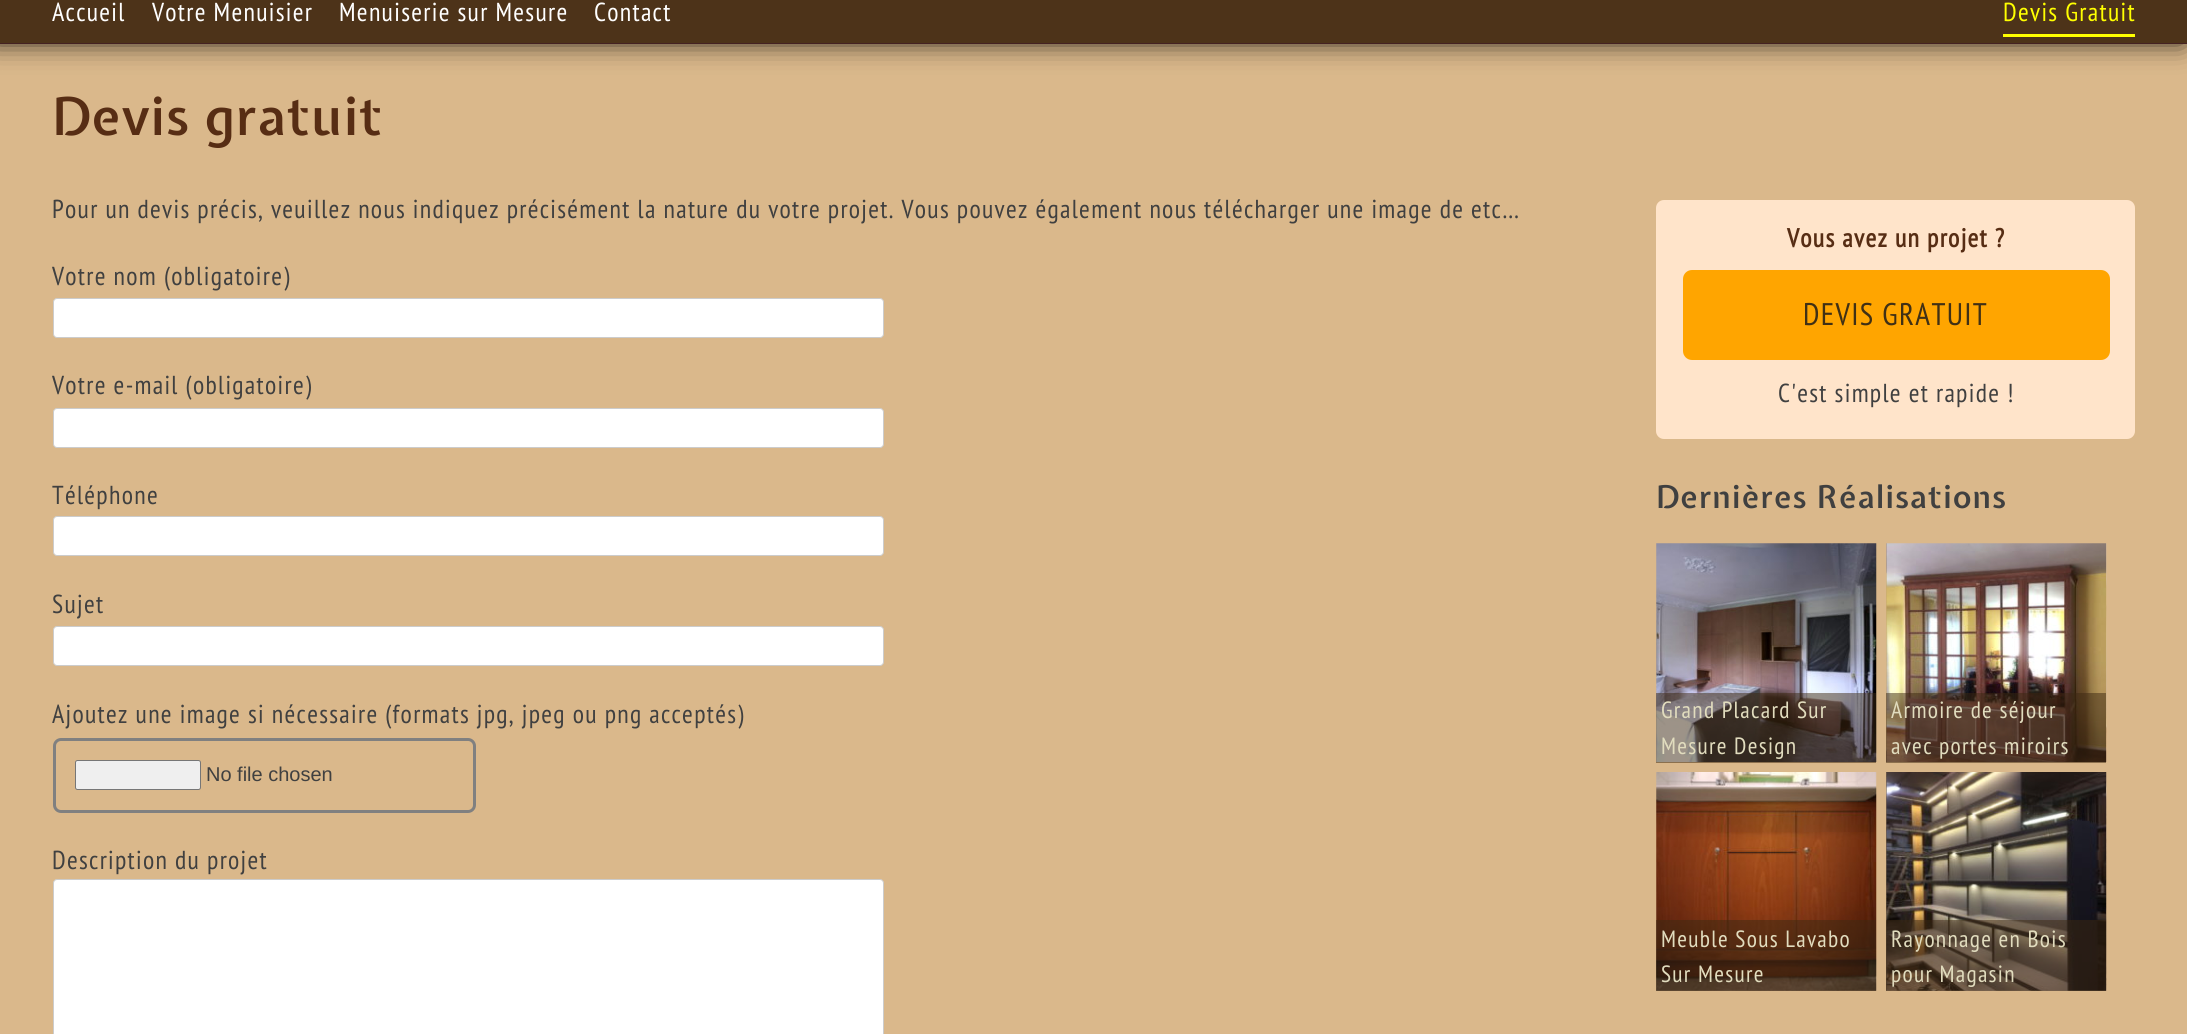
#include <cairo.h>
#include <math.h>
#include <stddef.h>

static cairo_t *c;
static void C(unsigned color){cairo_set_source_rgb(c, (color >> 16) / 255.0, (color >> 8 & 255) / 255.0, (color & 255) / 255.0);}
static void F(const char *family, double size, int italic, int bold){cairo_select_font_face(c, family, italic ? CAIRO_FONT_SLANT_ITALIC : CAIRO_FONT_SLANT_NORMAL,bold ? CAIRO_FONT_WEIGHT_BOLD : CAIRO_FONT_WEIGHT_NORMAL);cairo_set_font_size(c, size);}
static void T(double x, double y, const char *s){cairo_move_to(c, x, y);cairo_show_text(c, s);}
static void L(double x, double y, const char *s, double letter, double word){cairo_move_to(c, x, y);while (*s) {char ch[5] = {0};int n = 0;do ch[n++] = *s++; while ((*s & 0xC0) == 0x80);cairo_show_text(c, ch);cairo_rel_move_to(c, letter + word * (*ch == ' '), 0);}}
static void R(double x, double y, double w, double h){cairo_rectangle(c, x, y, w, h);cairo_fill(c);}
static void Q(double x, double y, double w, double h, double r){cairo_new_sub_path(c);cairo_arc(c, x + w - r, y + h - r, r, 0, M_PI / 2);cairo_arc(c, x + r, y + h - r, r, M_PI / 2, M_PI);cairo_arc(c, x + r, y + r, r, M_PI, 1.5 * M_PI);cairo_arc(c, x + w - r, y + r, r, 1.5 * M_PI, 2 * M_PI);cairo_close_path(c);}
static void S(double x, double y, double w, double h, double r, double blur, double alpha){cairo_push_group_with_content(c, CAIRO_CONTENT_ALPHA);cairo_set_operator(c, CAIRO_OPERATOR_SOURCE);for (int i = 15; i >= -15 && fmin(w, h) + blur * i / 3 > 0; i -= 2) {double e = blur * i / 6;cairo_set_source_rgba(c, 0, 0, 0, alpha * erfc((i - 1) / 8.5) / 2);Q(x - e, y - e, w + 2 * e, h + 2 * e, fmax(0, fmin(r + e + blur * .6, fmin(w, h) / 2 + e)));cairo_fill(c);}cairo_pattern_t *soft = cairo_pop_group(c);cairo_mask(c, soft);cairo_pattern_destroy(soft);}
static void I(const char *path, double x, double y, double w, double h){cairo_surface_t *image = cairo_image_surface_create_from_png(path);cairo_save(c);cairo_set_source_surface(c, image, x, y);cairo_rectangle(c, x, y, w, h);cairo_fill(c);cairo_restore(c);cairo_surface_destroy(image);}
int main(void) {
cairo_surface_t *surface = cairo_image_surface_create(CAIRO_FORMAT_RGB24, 2187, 1034);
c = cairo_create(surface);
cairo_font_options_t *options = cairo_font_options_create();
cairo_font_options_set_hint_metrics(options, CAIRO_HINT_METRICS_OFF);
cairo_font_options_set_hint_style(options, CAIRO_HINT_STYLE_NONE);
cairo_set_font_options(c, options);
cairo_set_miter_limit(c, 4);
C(0xdab88b);
cairo_paint(c);
C(0x000000);
S(-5,-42,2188,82,0,14,1);
C(0x4d3319);
R(0,0,2187,43);
C(0x442222);
R(0,43,2187,1);
F("PT Sans Narrow",26,0,0);
C(0xffffff);
L(52,21,"Accueil",1.3,0);
L(152,21,"Votre Menuisier",1.3,0);
L(339,21,"Menuiserie sur Mesure",1.3,0);
L(594,21,"Contact",1.3,0);
C(0xffff00);
R(2003,34,132,3);
L(2003,21,"Devis Gratuit",1.3,0);
F("Expletus Sans SemiBold",52,0,0);
C(0x572d14);
L(52,135,"Devis gratuit",1.3,0);
F("PT Sans Narrow",26,0,0);
C(0x404040);
L(52,218,"Pour un devis précis, veuillez nous indiquez précisément la nature du votre projet. Vous pouvez également nous télécharger une image de etc…",1.3,0);
L(52,285,"Votre nom (obligatoire)",1.3,0);
C(0xffffff);
Q(53.5,298.5,830,39,3.5);
cairo_fill_preserve(c);
C(0xcccccc);
cairo_set_line_width(c,1);
cairo_stroke(c);
C(0x404040);
L(52,394,"Votre e-mail (obligatoire)",1.3,0);
C(0xffffff);
Q(53.5,408.5,830,39,3.5);
cairo_fill_preserve(c);
C(0xcccccc);
cairo_stroke(c);
C(0x404040);
L(52,504,"Téléphone",1.3,0);
C(0xffffff);
Q(53.5,516.5,830,39,3.5);
cairo_fill_preserve(c);
C(0xcccccc);
cairo_stroke(c);
C(0x404040);
L(52,613,"Sujet",1.3,0);
C(0xffffff);
Q(53.5,626.5,830,39,3.5);
cairo_fill_preserve(c);
C(0xcccccc);
cairo_stroke(c);
C(0x404040);
L(52,723,"Ajoutez une image si nécessaire (formats jpg, jpeg ou png acceptés)",1.3,0);
Q(54.5,739.5,420,72,6.5);
C(0x808080);
cairo_set_line_width(c,3);
cairo_stroke(c);
C(0xefefef);
Q(75.5,760.5,125,29,2);
cairo_fill_preserve(c);
C(0x767676);
cairo_set_line_width(c,1);
cairo_stroke(c);
F("Liberation Sans",20,0,0);
C(0x404040);
T(206,781,"No file chosen");
F("PT Sans Narrow",26,0,0);
L(52,869,"Description du projet",1.3,0);
C(0xffffff);
Q(53.5,879.5,830,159,3.5);
cairo_fill_preserve(c);
C(0xcccccc);
cairo_stroke(c);
C(0xffe4ca);
Q(1656,200,479,239,8);
cairo_fill(c);
F("PT Sans Narrow",26,0,1);
C(0x572d14);
L(1787,247,"Vous avez un projet ?",1.3,0);
C(0xffa500);
Q(1683,270,427,90,9);
cairo_fill(c);
F("PT Sans Narrow",31.25,0,0);
C(0x403015);
L(1803,325,"DEVIS GRATUIT",1.3,0);
F("PT Sans Narrow",26,0,0);
C(0x404040);
L(1778,402,"C'est simple et rapide !",1.3,0);
F("Expletus Sans SemiBold",31.25,0,0);
L(1656,508,"Dernières Réalisations",1.3,0);
I("1.png",1656,543,221,219);
cairo_set_source_rgba(c,0.235,0.157,0.078,0.5);
R(1656,693,220,70);
F("PT Sans Narrow",23.5,0,0);
C(0xe1dcbe);
L(1661,718,"Grand Placard Sur",1.3,0);
L(1661,754,"Mesure Design",1.3,0);
I("2.png",1886,543,221,219);
cairo_set_source_rgba(c,0.235,0.157,0.078,0.5);
R(1886,693,220,70);
C(0xe1dcbe);
L(1891,718,"Armoire de séjour",1.3,0);
L(1891,754,"avec portes miroirs",1.3,0);
I("3.png",1656,772,221,219);
cairo_set_source_rgba(c,0.235,0.157,0.078,0.5);
R(1656,920,220,71);
C(0xe1dcbe);
L(1661,947,"Meuble Sous Lavabo",1.3,0);
L(1661,982,"Sur Mesure",1.3,0);
I("4.png",1886,772,221,219);
cairo_set_source_rgba(c,0.235,0.157,0.078,0.5);
R(1886,920,220,71);
C(0xe1dcbe);
L(1891,947,"Rayonnage en Bois",1.3,0);
L(1891,982,"pour Magasin",1.3,0);
cairo_surface_write_to_png(surface, "o.png");
cairo_font_options_destroy(options);
cairo_destroy(c);
cairo_surface_destroy(surface);
return 0;
}
